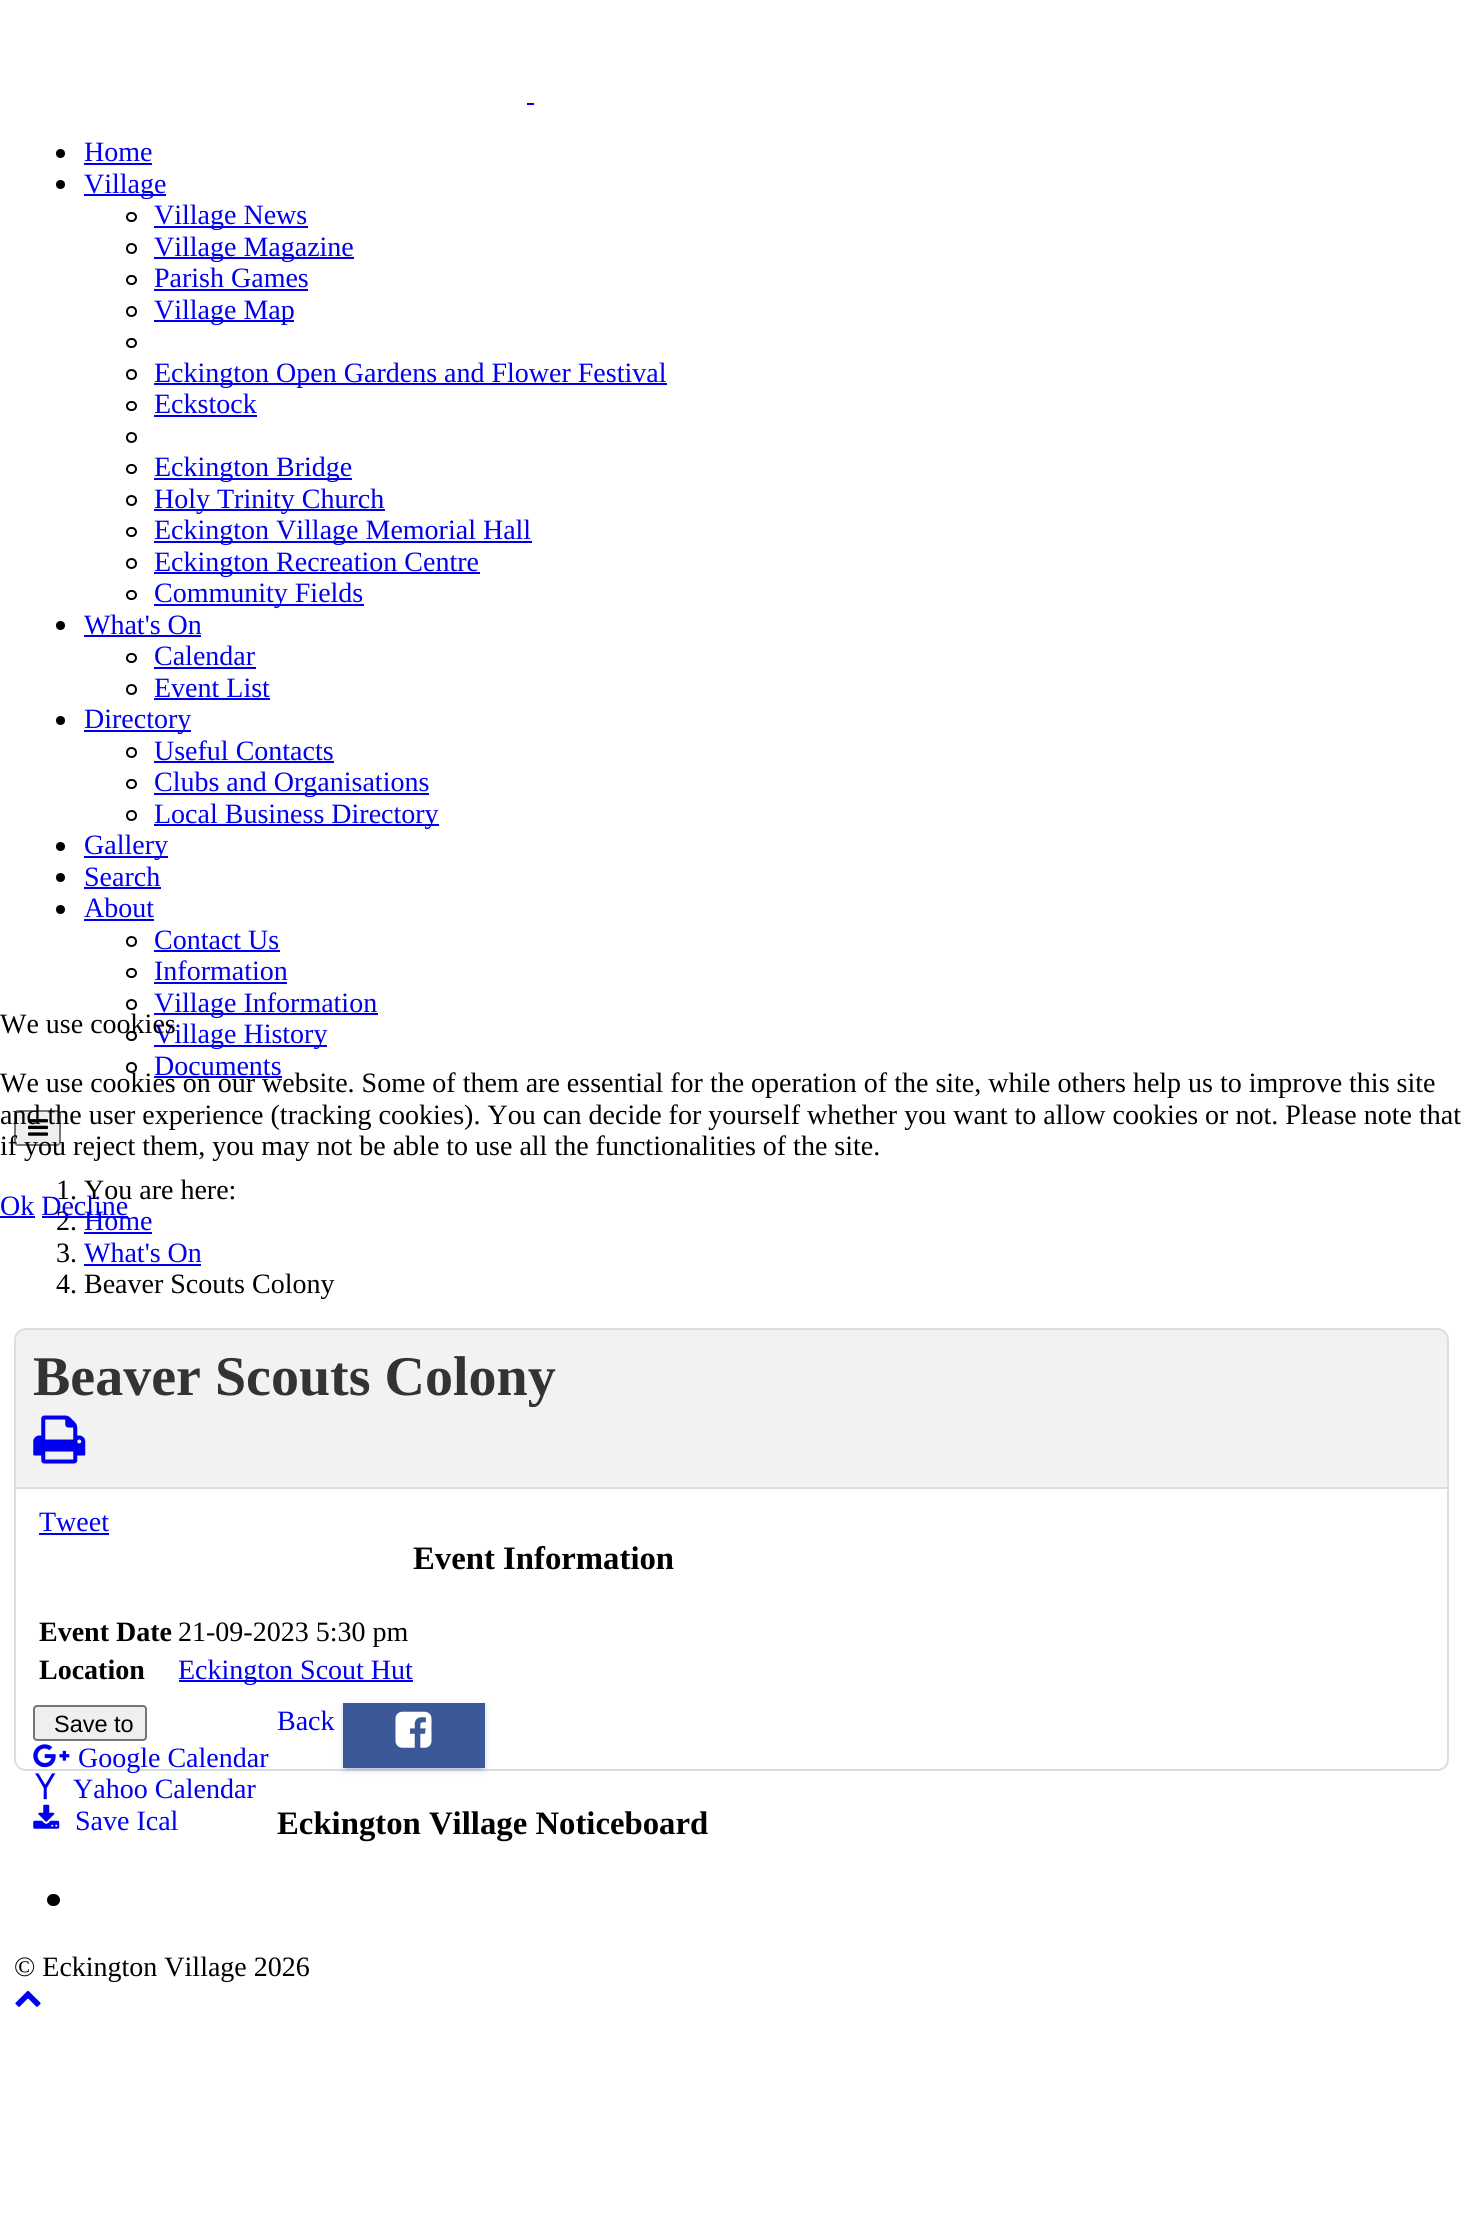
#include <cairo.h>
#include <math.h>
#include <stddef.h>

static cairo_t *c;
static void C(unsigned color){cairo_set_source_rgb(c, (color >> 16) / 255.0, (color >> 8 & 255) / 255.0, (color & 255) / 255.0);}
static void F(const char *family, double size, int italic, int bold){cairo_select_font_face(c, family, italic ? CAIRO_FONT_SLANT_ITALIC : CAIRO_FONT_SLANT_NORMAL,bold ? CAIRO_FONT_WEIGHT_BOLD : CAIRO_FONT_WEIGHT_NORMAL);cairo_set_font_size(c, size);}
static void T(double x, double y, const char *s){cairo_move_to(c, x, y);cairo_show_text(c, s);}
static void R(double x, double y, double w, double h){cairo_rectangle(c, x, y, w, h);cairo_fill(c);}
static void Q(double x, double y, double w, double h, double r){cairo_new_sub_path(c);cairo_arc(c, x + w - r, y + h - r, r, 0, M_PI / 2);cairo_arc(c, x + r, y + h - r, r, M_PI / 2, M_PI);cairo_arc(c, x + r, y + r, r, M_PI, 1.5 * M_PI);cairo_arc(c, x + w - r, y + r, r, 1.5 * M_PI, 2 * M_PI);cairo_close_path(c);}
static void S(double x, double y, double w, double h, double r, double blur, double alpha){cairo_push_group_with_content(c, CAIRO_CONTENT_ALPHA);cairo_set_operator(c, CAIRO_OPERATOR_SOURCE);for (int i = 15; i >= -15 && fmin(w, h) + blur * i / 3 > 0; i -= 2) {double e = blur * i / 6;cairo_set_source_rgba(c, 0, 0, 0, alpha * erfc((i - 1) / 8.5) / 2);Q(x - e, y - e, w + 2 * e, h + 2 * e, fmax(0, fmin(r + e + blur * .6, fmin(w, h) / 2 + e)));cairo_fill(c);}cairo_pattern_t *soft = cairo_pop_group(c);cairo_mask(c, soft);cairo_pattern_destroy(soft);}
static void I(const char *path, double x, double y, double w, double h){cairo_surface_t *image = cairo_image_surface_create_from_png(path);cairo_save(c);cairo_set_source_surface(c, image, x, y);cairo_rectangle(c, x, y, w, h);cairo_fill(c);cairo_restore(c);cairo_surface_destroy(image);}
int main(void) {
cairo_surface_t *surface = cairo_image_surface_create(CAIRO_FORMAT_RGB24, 1463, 2228);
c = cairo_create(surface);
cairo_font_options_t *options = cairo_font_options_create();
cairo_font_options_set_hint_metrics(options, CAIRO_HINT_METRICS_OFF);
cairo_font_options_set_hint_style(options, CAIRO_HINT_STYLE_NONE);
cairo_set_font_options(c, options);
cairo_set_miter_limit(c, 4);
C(0xffffff);
cairo_paint(c);
C(0x0000ee);
R(527,103,7,2);
C(0x000000);
cairo_arc(c,60.5,153.5,4.5,0,2 * M_PI);
cairo_fill(c);
F("Liberation Serif",28,0,0);
C(0x0000ee);
T(84,161,"Home");
R(84,163,68,2);
C(0x000000);
cairo_new_path(c);
cairo_arc(c,60.5,184.5,4.5,0,2 * M_PI);
cairo_fill(c);
C(0x0000ee);
R(84,194,82,2);
T(84,193,"Village");
Q(127,213,9,8,4);
C(0x000000);
cairo_stroke(c);
C(0x0000ee);
R(154,226,154,2);
T(154,224,"Village News");
cairo_new_path(c);
cairo_arc(c,131.5,248.5,4.5,0,2 * M_PI);
C(0x000000);
cairo_stroke(c);
C(0x0000ee);
R(154,257,200,2);
T(154,256,"Village Magazine");
Q(127,276,9,8,4);
C(0x000000);
cairo_stroke(c);
C(0x0000ee);
T(154,287,"Parish Games");
R(154,289,154,2);
cairo_new_path(c);
cairo_arc(c,131.5,311.5,4.5,0,2 * M_PI);
C(0x000000);
cairo_stroke(c);
C(0x0000ee);
R(154,320,140,2);
T(154,319,"Village Map");
Q(127,339,9,8,4);
C(0x000000);
cairo_stroke(c);
cairo_arc(c,131.5,374.5,4.5,0,2 * M_PI);
cairo_stroke(c);
C(0x0000ee);
R(154,383,513,2);
T(154,382,"Eckington Open Gardens and Flower Festival");
Q(127,402,9,8,4);
C(0x000000);
cairo_stroke(c);
C(0x0000ee);
T(154,413,"Eckstock");
R(154,415,103,2);
cairo_new_path(c);
cairo_arc(c,131.5,437.5,4.5,0,2 * M_PI);
C(0x000000);
cairo_stroke(c);
Q(127,465,9,8,4);
cairo_stroke(c);
C(0x0000ee);
R(154,478,198,2);
T(154,476,"Eckington Bridge");
cairo_new_path(c);
cairo_arc(c,131.5,500.5,4.5,0,2 * M_PI);
C(0x000000);
cairo_stroke(c);
C(0x0000ee);
R(154,509,231,2);
T(154,508,"Holy Trinity Church");
Q(127,528,9,8,4);
C(0x000000);
cairo_stroke(c);
C(0x0000ee);
R(154,541,378,2);
T(154,539,"Eckington Village Memorial Hall");
cairo_new_path(c);
cairo_arc(c,131.5,563.5,4.5,0,2 * M_PI);
C(0x000000);
cairo_stroke(c);
C(0x0000ee);
R(154,572,326,2);
T(154,571,"Eckington Recreation Centre");
Q(127,591,9,8,4);
C(0x000000);
cairo_stroke(c);
C(0x0000ee);
R(154,604,210,2);
T(154,602,"Community Fields");
C(0x000000);
cairo_new_path(c);
cairo_arc(c,60.5,625.5,4.5,0,2 * M_PI);
cairo_fill(c);
C(0x0000ee);
T(84,634,"What's On");
R(84,635,117,2);
Q(127,654,9,8,4);
C(0x000000);
cairo_stroke(c);
C(0x0000ee);
T(154,665,"Calendar");
R(154,667,102,2);
cairo_new_path(c);
cairo_arc(c,131.5,689.5,4.5,0,2 * M_PI);
C(0x000000);
cairo_stroke(c);
C(0x0000ee);
T(154,697,"Event List");
R(154,698,116,2);
C(0x000000);
cairo_new_path(c);
cairo_arc(c,60.5,720.5,4.5,0,2 * M_PI);
cairo_fill(c);
C(0x0000ee);
R(84,730,107,2);
T(84,728,"Directory");
cairo_new_path(c);
cairo_arc(c,131.5,752.5,4.5,0,2 * M_PI);
C(0x000000);
cairo_stroke(c);
C(0x0000ee);
T(154,760,"Useful Contacts");
R(154,761,180,2);
Q(127,780,9,8,4);
C(0x000000);
cairo_stroke(c);
C(0x0000ee);
R(154,793,275,2);
T(154,791,"Clubs and Organisations");
cairo_new_path(c);
cairo_arc(c,131.5,815.5,4.5,0,2 * M_PI);
C(0x000000);
cairo_stroke(c);
C(0x0000ee);
R(154,824,285,2);
T(154,823,"Local Business Directory");
C(0x000000);
cairo_new_path(c);
cairo_arc(c,60.5,846.5,4.5,0,2 * M_PI);
cairo_fill(c);
C(0x0000ee);
R(84,856,84,2);
T(84,854,"Gallery");
C(0x000000);
cairo_new_path(c);
cairo_arc(c,60.5,877.5,4.5,0,2 * M_PI);
cairo_fill(c);
C(0x0000ee);
T(84,886,"Search");
R(84,887,77,2);
C(0x000000);
cairo_new_path(c);
cairo_arc(c,60.5,909.5,4.5,0,2 * M_PI);
cairo_fill(c);
C(0x0000ee);
T(84,917,"About");
R(84,919,70,2);
cairo_new_path(c);
cairo_arc(c,131.5,941.5,4.5,0,2 * M_PI);
C(0x000000);
cairo_stroke(c);
C(0x0000ee);
T(154,949,"Contact Us");
R(154,950,126,2);
Q(127,969,9,8,4);
C(0x000000);
cairo_stroke(c);
C(0x0000ee);
T(154,980,"Information");
R(154,982,133,2);
cairo_new_path(c);
cairo_arc(c,131.5,1004.5,4.5,0,2 * M_PI);
C(0x000000);
cairo_stroke(c);
C(0x0000ee);
R(154,1013,224,2);
T(154,1012,"Village Information");
Q(127,1032,9,8,4);
C(0x000000);
cairo_stroke(c);
C(0x0000ee);
R(154,1045,173,2);
T(154,1043,"Village History");
cairo_new_path(c);
cairo_arc(c,131.5,1067.5,4.5,0,2 * M_PI);
C(0x000000);
cairo_stroke(c);
C(0x0000ee);
T(154,1075,"Documents");
R(154,1076,128,2);
C(0xefefef);
Q(15,1111,45,34,3);
cairo_fill_preserve(c);
C(0x767676);
cairo_stroke(c);
I("1.png",28,1119,20,17);
C(0x000000);
T(56,1199,"1. You are here:");
T(56,1230,"2.");
C(0x0000ee);
T(84,1230,"Home");
R(84,1232,68,2);
C(0x000000);
T(56,1262,"3.");
C(0x0000ee);
T(84,1262,"What's On");
R(84,1264,117,2);
C(0x000000);
T(56,1293,"4. Beaver Scouts Colony");
C(0xf2f2f2);
cairo_new_path(c);
cairo_move_to(c,26,1329);
cairo_line_to(c,1437,1329);
cairo_curve_to(c,1443,1329,1448,1334,1448,1340);
cairo_line_to(c,1448,1488);
cairo_line_to(c,15,1488);
cairo_line_to(c,15,1340);
cairo_curve_to(c,15,1334,20,1329,26,1329);
cairo_close_path(c);
cairo_fill_preserve(c);
C(0xdbdee1);
cairo_stroke(c);
F("Liberation Serif",56,0,1);
C(0x333333);
T(33,1395,"Beaver Scouts Colony");
I("2.png",33,1415,53,49);
C(0xdbdee1);
cairo_set_fill_rule(c,CAIRO_FILL_RULE_EVEN_ODD);
cairo_new_path(c);
cairo_move_to(c,14,1489);
cairo_line_to(c,1449,1489);
cairo_line_to(c,1449,1759);
cairo_curve_to(c,1449,1766,1444,1771,1437,1771);
cairo_line_to(c,26,1771);
cairo_curve_to(c,19,1771,14,1766,14,1759);
cairo_close_path(c);
cairo_move_to(c,16,1489);
cairo_line_to(c,1447,1489);
cairo_line_to(c,1447,1759);
cairo_curve_to(c,1447,1765,1443,1769,1437,1769);
cairo_line_to(c,26,1769);
cairo_curve_to(c,20,1769,16,1765,16,1759);
cairo_close_path(c);
cairo_fill(c);
F("Liberation Serif",28,0,0);
C(0x0000ee);
T(39,1531,"Tweet");
R(39,1533,70,2);
F("Liberation Serif",32.75,0,1);
C(0x000000);
T(413,1569,"Event Information");
F("Liberation Serif",28,0,1);
T(39,1641,"Event Date");
F("Liberation Serif",28,0,0);
T(178,1641,"21-09-2023 5:30 pm");
F("Liberation Serif",28,0,1);
T(39,1679,"Location");
C(0x0000ee);
R(179,1680,234,2);
F("Liberation Serif",28,0,0);
T(178,1679,"Eckington Scout Hut");
C(0xefefef);
Q(34,1706,112,34,3);
cairo_fill_preserve(c);
C(0x767676);
cairo_stroke(c);
F("Liberation Sans",23.5,0,0);
C(0x000000);
T(54,1732,"Save to");
I("3.png",33,1744,37,24);
F("Liberation Serif",28,0,0);
C(0x0000ee);
T(78,1767,"Google Calendar");
I("4.png",35,1773,21,27);
T(73,1798,"Yahoo Calendar");
I("5.png",33,1804,27,25);
T(75,1830,"Save Ical");
T(277,1730,"Back");
C(0x3b5998);
S(343,1705,142,64,0,4.5,.12);
S(347,1712,134,57,0,1,.2);
S(343,1706,142,65,0,2,.14);
C(0x3b5998);
R(343,1703,142,65);
I("6.png",395,1711,37,37);
F("Liberation Serif",32.75,0,1);
C(0x000000);
T(277,1834,"Eckington Village Noticeboard");
Q(47,1894,13,12,6);
cairo_fill(c);
F("Liberation Serif",28,0,0);
T(14,1976,"© Eckington Village 2026");
I("7.png",15,1990,26,17);
T(0,1033,"We use cookies");
T(0,1092,"We use cookies on our website. Some of them are essential for the operation of the site, while others help us to improve this site");
T(0,1124,"and the user experience (tracking cookies). You can decide for yourself whether you want to allow cookies or not. Please note that");
T(0,1155,"if you reject them, you may not be able to use all the functionalities of the site.");
C(0x0000ee);
T(0,1215,"Ok Decline");
R(0,1216,35,2);
R(42,1216,86,2);
cairo_surface_write_to_png(surface, "o.png");
cairo_font_options_destroy(options);
cairo_destroy(c);
cairo_surface_destroy(surface);
return 0;
}
